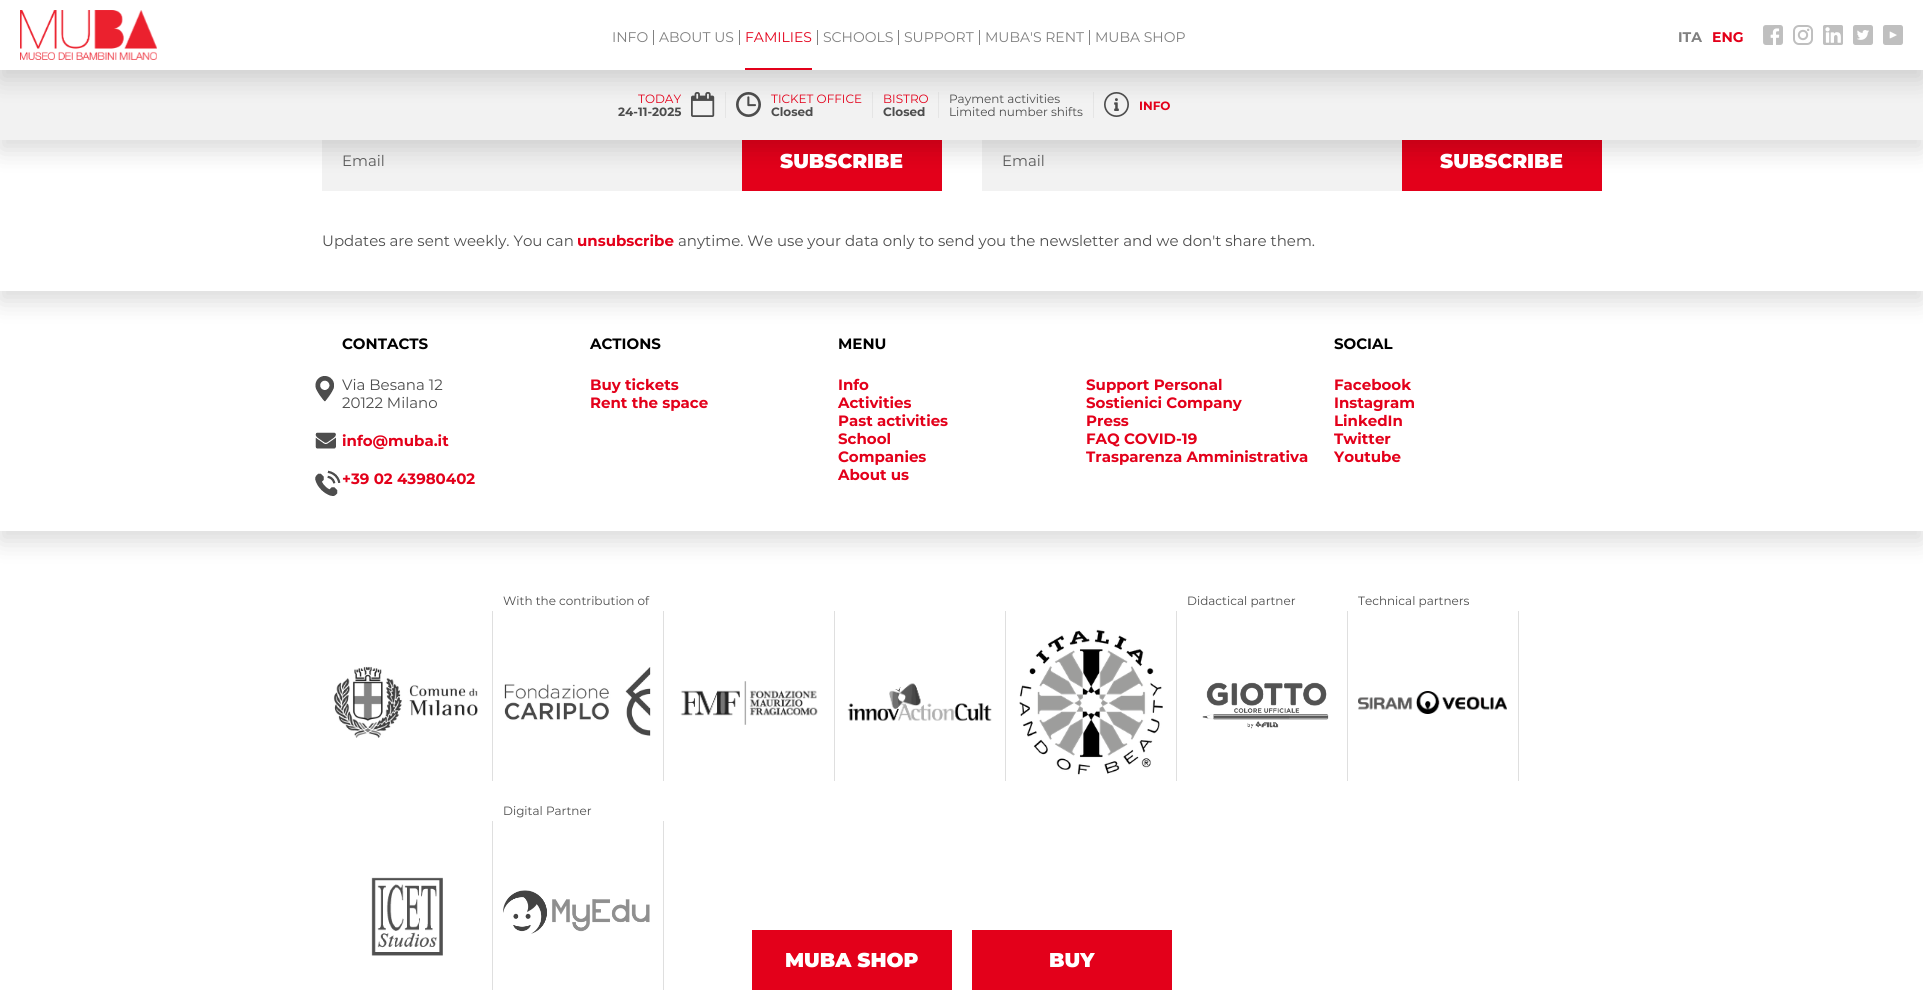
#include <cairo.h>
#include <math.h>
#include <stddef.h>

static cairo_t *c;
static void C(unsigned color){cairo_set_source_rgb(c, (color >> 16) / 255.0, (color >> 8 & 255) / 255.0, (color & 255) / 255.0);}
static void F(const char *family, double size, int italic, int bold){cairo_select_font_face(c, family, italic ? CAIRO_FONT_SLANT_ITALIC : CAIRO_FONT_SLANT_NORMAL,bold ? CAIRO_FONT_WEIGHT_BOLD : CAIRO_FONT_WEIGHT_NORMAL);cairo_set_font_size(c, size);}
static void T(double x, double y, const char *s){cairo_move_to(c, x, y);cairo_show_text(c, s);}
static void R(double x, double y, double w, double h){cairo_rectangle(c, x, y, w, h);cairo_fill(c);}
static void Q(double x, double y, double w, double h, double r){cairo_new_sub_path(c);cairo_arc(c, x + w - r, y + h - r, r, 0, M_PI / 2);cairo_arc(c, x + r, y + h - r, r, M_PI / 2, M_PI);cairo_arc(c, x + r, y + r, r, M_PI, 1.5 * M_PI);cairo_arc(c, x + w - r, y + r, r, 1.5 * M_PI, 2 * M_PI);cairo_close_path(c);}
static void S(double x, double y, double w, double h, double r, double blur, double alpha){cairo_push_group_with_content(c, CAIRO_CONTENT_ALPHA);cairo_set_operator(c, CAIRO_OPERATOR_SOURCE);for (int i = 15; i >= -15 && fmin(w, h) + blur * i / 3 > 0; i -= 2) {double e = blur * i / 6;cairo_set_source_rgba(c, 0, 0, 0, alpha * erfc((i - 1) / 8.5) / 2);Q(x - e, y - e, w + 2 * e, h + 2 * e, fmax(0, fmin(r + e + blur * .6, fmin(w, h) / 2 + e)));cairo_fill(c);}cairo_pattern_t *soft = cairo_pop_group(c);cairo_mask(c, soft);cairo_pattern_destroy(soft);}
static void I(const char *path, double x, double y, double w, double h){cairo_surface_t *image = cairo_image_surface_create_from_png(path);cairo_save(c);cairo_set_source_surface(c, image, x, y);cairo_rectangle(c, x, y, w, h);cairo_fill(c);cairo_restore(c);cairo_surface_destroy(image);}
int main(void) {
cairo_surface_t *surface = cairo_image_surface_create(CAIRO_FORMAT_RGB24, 1923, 990);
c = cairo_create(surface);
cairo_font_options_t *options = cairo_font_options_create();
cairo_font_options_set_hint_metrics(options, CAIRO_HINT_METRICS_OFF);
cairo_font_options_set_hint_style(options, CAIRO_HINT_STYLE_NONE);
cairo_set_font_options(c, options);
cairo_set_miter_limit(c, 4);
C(0xffffff);
cairo_paint(c);
C(0x000000);
S(0,301,1923,240,0,12.5,.15);
C(0xffffff);
R(0,291,1923,240);
C(0x000000);
S(0,-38,1923,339,0,12.5,.15);
C(0xffffff);
R(0,140,1923,151);
C(0xf2f2f2);
R(322,140,420,51);
C(0xe3001a);
R(742,140,200,51);
C(0xf2f2f2);
R(982,140,420,51);
C(0xe3001a);
R(1402,140,200,51);
C(0x000000);
S(0,80,1923,70,0,12.5,.15);
C(0xf2f2f2);
R(0,70,1923,70);
C(0xe5e5e5);
R(725,92,1,26);
I("7.png",691,92,24,25);
I("8.png",736,92,25,25);
R(872,92,1,26);
R(938,92,1,26);
R(1093,92,1,26);
I("9.png",1104,92,25,25);
C(0x000000);
S(0,10,1923,70,0,12.5,.15);
C(0xffffff);
R(0,0,1923,70);
I("1.png",20,10,137,50);
F("Montserrat",14,0,0);
C(0x808080);
T(612,42,"INFO");
R(653,30,1,15);
T(659,42,"ABOUT US");
R(739,30,1,15);
C(0xe3001a);
R(745,68,67,2);
T(745,42,"FAMILIES");
C(0x808080);
R(817,30,1,15);
T(823,42,"SCHOOLS");
R(898,30,1,15);
T(904,42,"SUPPORT");
R(979,30,1,15);
T(985,42,"MUBA'S RENT");
R(1089,30,1,15);
T(1095,42,"MUBA SHOP");
F("Montserrat",14,0,1);
T(1678,42,"ITA");
C(0xe3001a);
T(1712,42,"ENG");
I("2.png",1763,25,20,20);
I("3.png",1793,25,20,20);
I("4.png",1823,25,20,20);
I("5.png",1853,25,20,20);
I("6.png",1883,25,20,20);
F("Montserrat",12,0,0);
T(638,103,"TODAY");
F("Montserrat",12,0,1);
C(0x4d4d4d);
T(618,116,"24-11-2025");
F("Montserrat",12,0,0);
C(0xe3001a);
T(771,103,"TICKET OFFICE");
F("Montserrat",12,0,1);
C(0x4d4d4d);
T(771,116,"Closed");
F("Montserrat",12,0,0);
C(0xe3001a);
T(883,103,"BISTRO");
F("Montserrat",12,0,1);
C(0x4d4d4d);
T(883,116,"Closed");
F("Montserrat",12,0,0);
T(949,103,"Payment activities");
T(949,116,"Limited number shifts");
F("Montserrat",12,0,1);
C(0xe3001a);
T(1139,110,"INFO");
F("Montserrat",15,0,0);
C(0x595959);
T(342,166,"Email");
F("Montserrat Black",20,0,0);
C(0xffffff);
T(780,168,"SUBSCRIBE");
F("Montserrat",15,0,0);
C(0x595959);
T(1002,166,"Email");
F("Montserrat Black",20,0,0);
C(0xffffff);
T(1440,168,"SUBSCRIBE");
F("Montserrat",15,0,0);
C(0x4d4d4d);
T(322,246,"Updates are sent weekly. You can");
F("Montserrat",15,0,1);
C(0xe3001a);
T(577,246,"unsubscribe");
F("Montserrat",15,0,0);
C(0x4d4d4d);
T(678,246,"anytime. We use your data only to send you the newsletter and we don't share them.");
F("Montserrat",15,0,1);
C(0x000000);
T(342,349,"CONTACTS");
I("10.png",315,376,19,26);
F("Montserrat",15,0,0);
C(0x4d4d4d);
T(342,390,"Via Besana 12");
T(342,408,"20122 Milano");
I("11.png",315,432,21,17);
F("Montserrat",15,0,1);
C(0xe3001a);
T(342,446,"info@muba.it");
I("12.png",315,470,26,26);
T(342,484,"+39 02 43980402");
C(0x000000);
T(590,349,"ACTIONS");
C(0xe3001a);
T(590,390,"Buy tickets");
T(590,408,"Rent the space");
C(0x000000);
T(838,349,"MENU");
C(0xe3001a);
T(838,390,"Info");
T(838,408,"Activities");
T(838,426,"Past activities");
T(838,444,"School");
T(838,462,"Companies");
T(838,480,"About us");
T(1086,390,"Support Personal");
T(1086,408,"Sostienici Company");
T(1086,426,"Press");
T(1086,444,"FAQ COVID-19");
T(1086,462,"Trasparenza Amministrativa");
C(0x000000);
T(1334,349,"SOCIAL");
C(0xe3001a);
T(1334,390,"Facebook");
T(1334,408,"Instagram");
T(1334,426,"LinkedIn");
T(1334,444,"Twitter");
T(1334,462,"Youtube");
C(0xdfdfdf);
R(663,611,1,170);
F("Montserrat",12,0,0);
C(0x4d4d4d);
T(503,605,"With the contribution of");
I("13.png",504,667,147,69);
C(0xdfdfdf);
R(1347,611,1,170);
C(0x4d4d4d);
T(1187,605,"Didactical partner");
I("14.png",1202,682,127,47);
C(0xdfdfdf);
R(1518,611,1,170);
C(0x4d4d4d);
T(1358,605,"Technical partners");
I("15.png",1358,691,149,23);
C(0xdfdfdf);
R(492,611,1,170);
I("16.png",333,666,145,72);
R(834,611,1,170);
I("17.png",680,681,138,44);
R(1005,611,1,170);
I("18.png",847,683,145,38);
R(1176,611,1,170);
I("19.png",1019,629,144,146);
R(663,821,1,169);
C(0x4d4d4d);
T(503,815,"Digital Partner");
I("20.png",503,890,147,44);
C(0xdfdfdf);
R(492,821,1,169);
I("21.png",371,877,72,79);
C(0xe3001a);
R(752,930,200,60);
F("Montserrat Black",20,0,0);
C(0xffffff);
T(785,967,"MUBA SHOP");
C(0xe3001a);
R(972,930,200,60);
C(0xffffff);
T(1049,967,"BUY");
cairo_surface_write_to_png(surface, "o.png");
cairo_font_options_destroy(options);
cairo_destroy(c);
cairo_surface_destroy(surface);
return 0;
}
